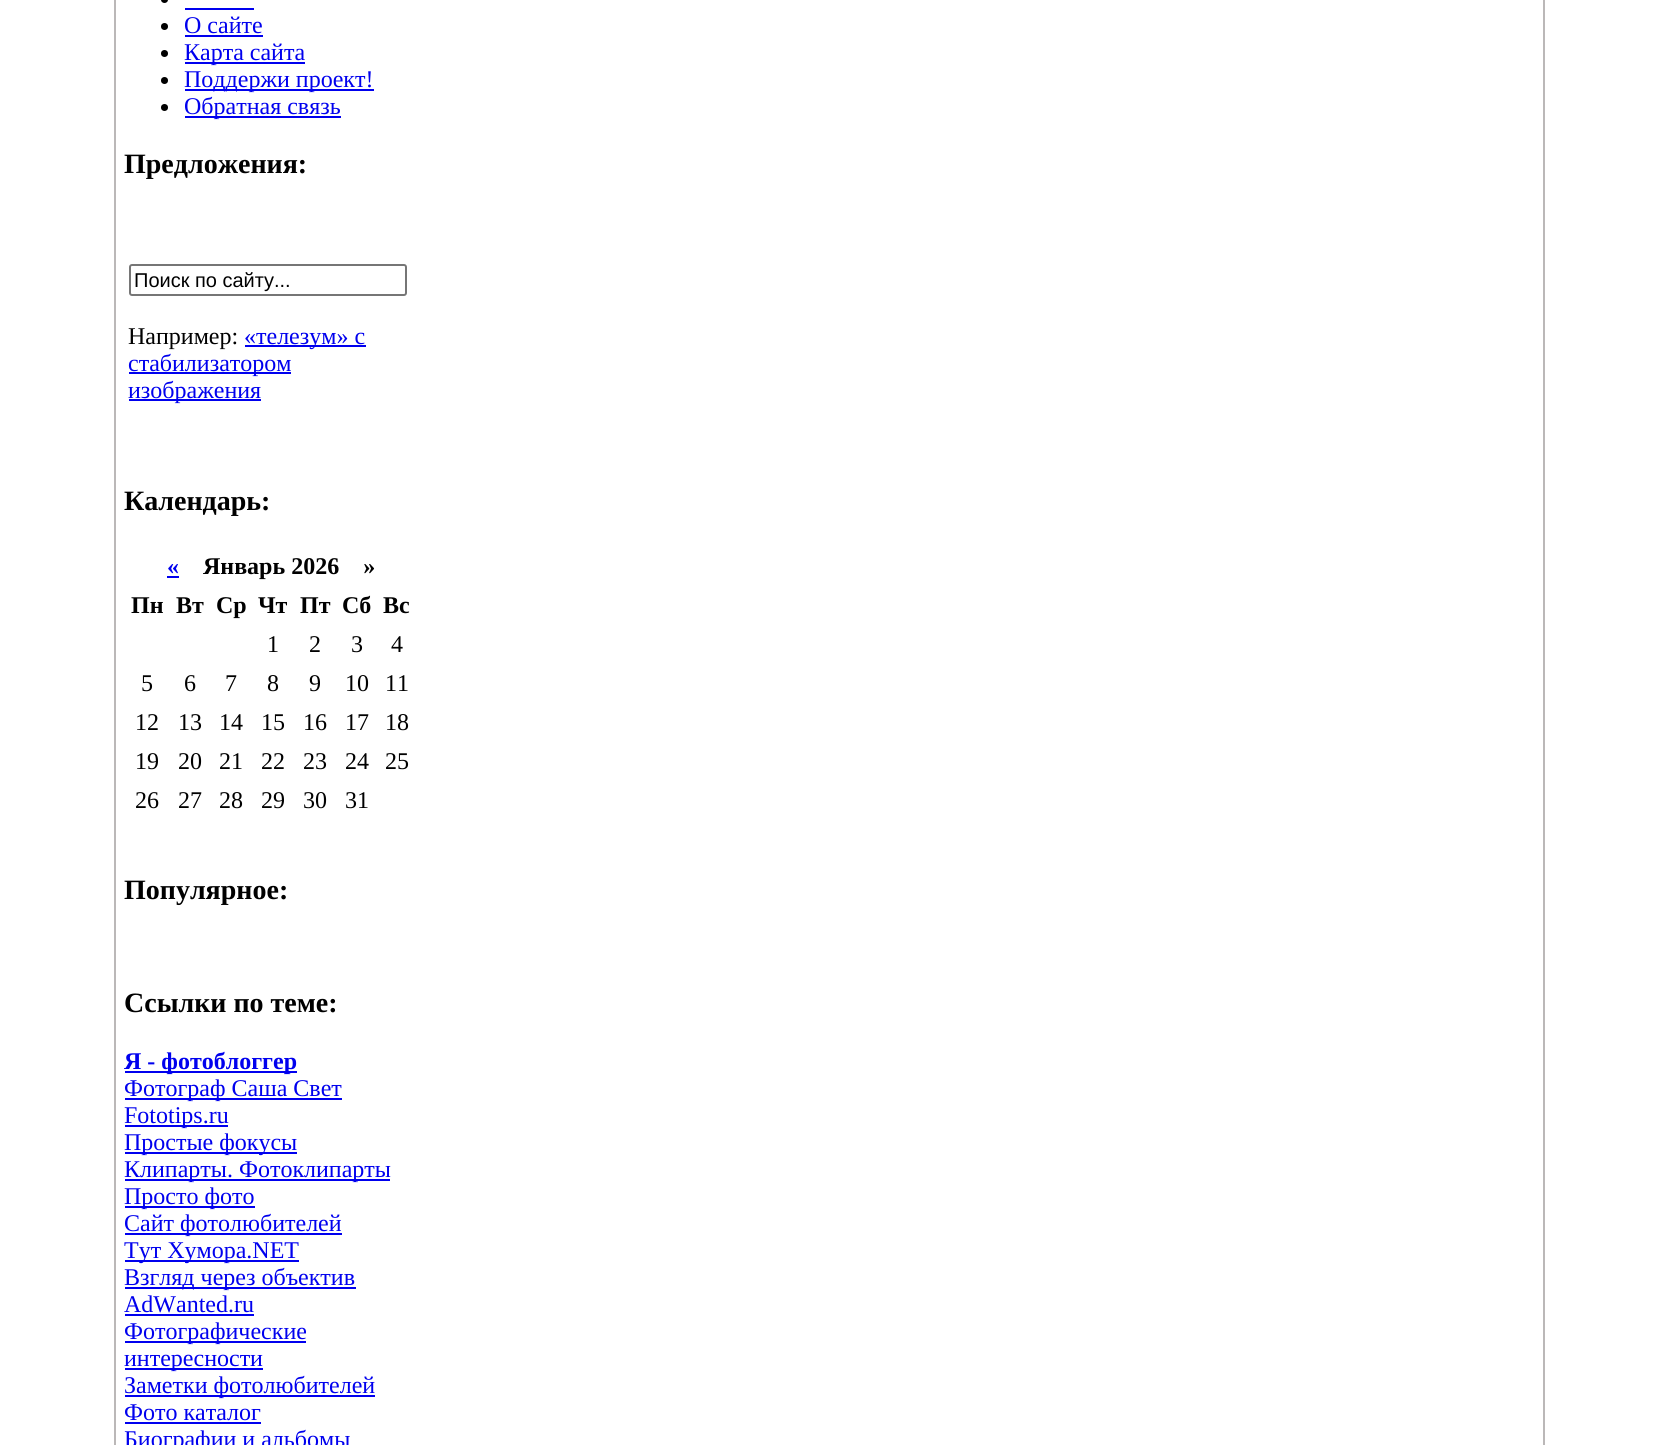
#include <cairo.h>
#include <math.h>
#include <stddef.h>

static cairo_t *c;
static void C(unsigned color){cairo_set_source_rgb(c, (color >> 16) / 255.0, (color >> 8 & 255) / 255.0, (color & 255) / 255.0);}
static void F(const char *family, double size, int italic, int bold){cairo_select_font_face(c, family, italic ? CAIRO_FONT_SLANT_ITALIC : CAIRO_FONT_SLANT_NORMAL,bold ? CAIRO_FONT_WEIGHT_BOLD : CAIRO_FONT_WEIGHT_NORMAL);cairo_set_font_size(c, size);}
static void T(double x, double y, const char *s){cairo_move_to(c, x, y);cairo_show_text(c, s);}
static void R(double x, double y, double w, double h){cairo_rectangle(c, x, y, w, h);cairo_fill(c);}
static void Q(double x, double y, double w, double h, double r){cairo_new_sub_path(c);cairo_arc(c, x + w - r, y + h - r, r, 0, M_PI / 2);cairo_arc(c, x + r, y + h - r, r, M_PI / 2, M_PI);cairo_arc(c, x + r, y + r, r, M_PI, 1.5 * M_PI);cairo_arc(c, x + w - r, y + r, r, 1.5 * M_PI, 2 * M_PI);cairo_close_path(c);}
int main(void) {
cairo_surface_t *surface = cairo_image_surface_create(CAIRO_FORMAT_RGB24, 1654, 1445);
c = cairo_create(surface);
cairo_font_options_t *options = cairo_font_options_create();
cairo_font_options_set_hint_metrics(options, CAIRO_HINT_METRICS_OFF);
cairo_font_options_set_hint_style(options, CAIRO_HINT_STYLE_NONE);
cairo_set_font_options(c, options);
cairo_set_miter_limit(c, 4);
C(0xffffff);
cairo_paint(c);
cairo_rectangle(c,115,-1,1429,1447);
C(0xbbb8b8);
cairo_stroke(c);
C(0x000000);
cairo_arc(c,164.5,-.5,3.5,0,2 * M_PI);
cairo_fill(c);
C(0x0000ee);
R(185,8,69,2);
C(0x000000);
cairo_arc(c,164.5,26.5,3.5,0,2 * M_PI);
cairo_fill(c);
F("Liberation Serif",24,0,0);
C(0x0000ee);
T(184,33,"О сайте");
R(185,35,78,2);
C(0x000000);
cairo_new_path(c);
cairo_arc(c,164.5,53.5,3.5,0,2 * M_PI);
cairo_fill(c);
C(0x0000ee);
R(185,62,120,2);
T(184,60,"Карта сайта");
C(0x000000);
cairo_new_path(c);
cairo_arc(c,164.5,80.5,3.5,0,2 * M_PI);
cairo_fill(c);
C(0x0000ee);
R(185,89,189,2);
T(184,87,"Поддержи проект!");
C(0x000000);
cairo_new_path(c);
cairo_arc(c,164.5,107.5,3.5,0,2 * M_PI);
cairo_fill(c);
C(0x0000ee);
R(185,116,156,2);
T(184,114,"Обратная связь");
F("Liberation Serif",28,0,1);
C(0x000000);
T(124,173,"Предложения:");
Q(130,265,276,30,2);
C(0x767676);
cairo_stroke(c);
F("Liberation Sans",20,0,0);
C(0x000000);
T(134,287,"Поиск по сайту...");
F("Liberation Serif",24,0,0);
T(128,344,"Например:");
C(0x0000ee);
R(245,345,121,2);
T(244,344,"«телезум» с");
R(129,372,162,2);
T(128,371,"стабилизатором");
R(129,399,132,2);
T(128,398,"изображения");
F("Liberation Serif",28,0,1);
C(0x000000);
T(124,510,"Календарь:");
F("Liberation Serif",24,0,1);
C(0x0000ee);
T(167,574,"«");
R(167,576,12,2);
C(0x000000);
T(203,574,"Январь 2026    »");
T(131,613,"Пн");
T(176,613,"Вт");
T(216,613,"Ср");
T(258,613,"Чт");
T(300,613,"Пт");
T(342,613,"Сб");
T(383,613,"Вс");
F("Liberation Serif",24,0,0);
T(267,652,"1");
T(309,652,"2");
T(351,652,"3");
T(391,652,"4");
T(141,691,"5");
T(184,691,"6");
T(225,691,"7");
T(267,691,"8");
T(309,691,"9");
T(345,691,"10");
T(385,691,"11");
T(135,730,"12");
T(178,730,"13");
T(219,730,"14");
T(261,730,"15");
T(303,730,"16");
T(345,730,"17");
T(385,730,"18");
T(135,769,"19");
T(178,769,"20");
T(219,769,"21");
T(261,769,"22");
T(303,769,"23");
T(345,769,"24");
T(385,769,"25");
T(135,808,"26");
T(178,808,"27");
T(219,808,"28");
T(261,808,"29");
T(303,808,"30");
T(345,808,"31");
F("Liberation Serif",28,0,1);
T(124,899,"Популярное:");
T(124,1012,"Ссылки по теме:");
C(0x0000ee);
R(125,1071,172,2);
F("Liberation Serif",24,0,1);
T(124,1069,"Я - фотоблоггер");
R(125,1098,217,2);
F("Liberation Serif",24,0,0);
T(124,1096,"Фотограф Саша Свет");
R(125,1125,103,2);
T(124,1123,"Fototips.ru");
R(125,1152,172,2);
T(124,1150,"Простые фокусы");
R(125,1179,265,2);
T(124,1177,"Клипарты. Фотоклипарты");
R(125,1206,130,2);
T(124,1204,"Просто фото");
R(125,1233,217,2);
T(124,1231,"Сайт фотолюбителей");
R(125,1260,174,2);
T(124,1258,"Тут Хумора.NET");
R(125,1287,231,2);
T(124,1285,"Взгляд через объектив");
T(124,1312,"AdWanted.ru");
R(125,1314,129,2);
R(125,1341,181,2);
T(124,1339,"Фотографические");
R(125,1368,138,2);
T(124,1366,"интересности");
R(125,1395,250,2);
T(124,1393,"Заметки фотолюбителей");
T(124,1420,"Фото каталог");
R(125,1422,136,2);
T(124,1447,"Биографии и альбомы");
cairo_surface_write_to_png(surface, "o.png");
cairo_font_options_destroy(options);
cairo_destroy(c);
cairo_surface_destroy(surface);
return 0;
}
